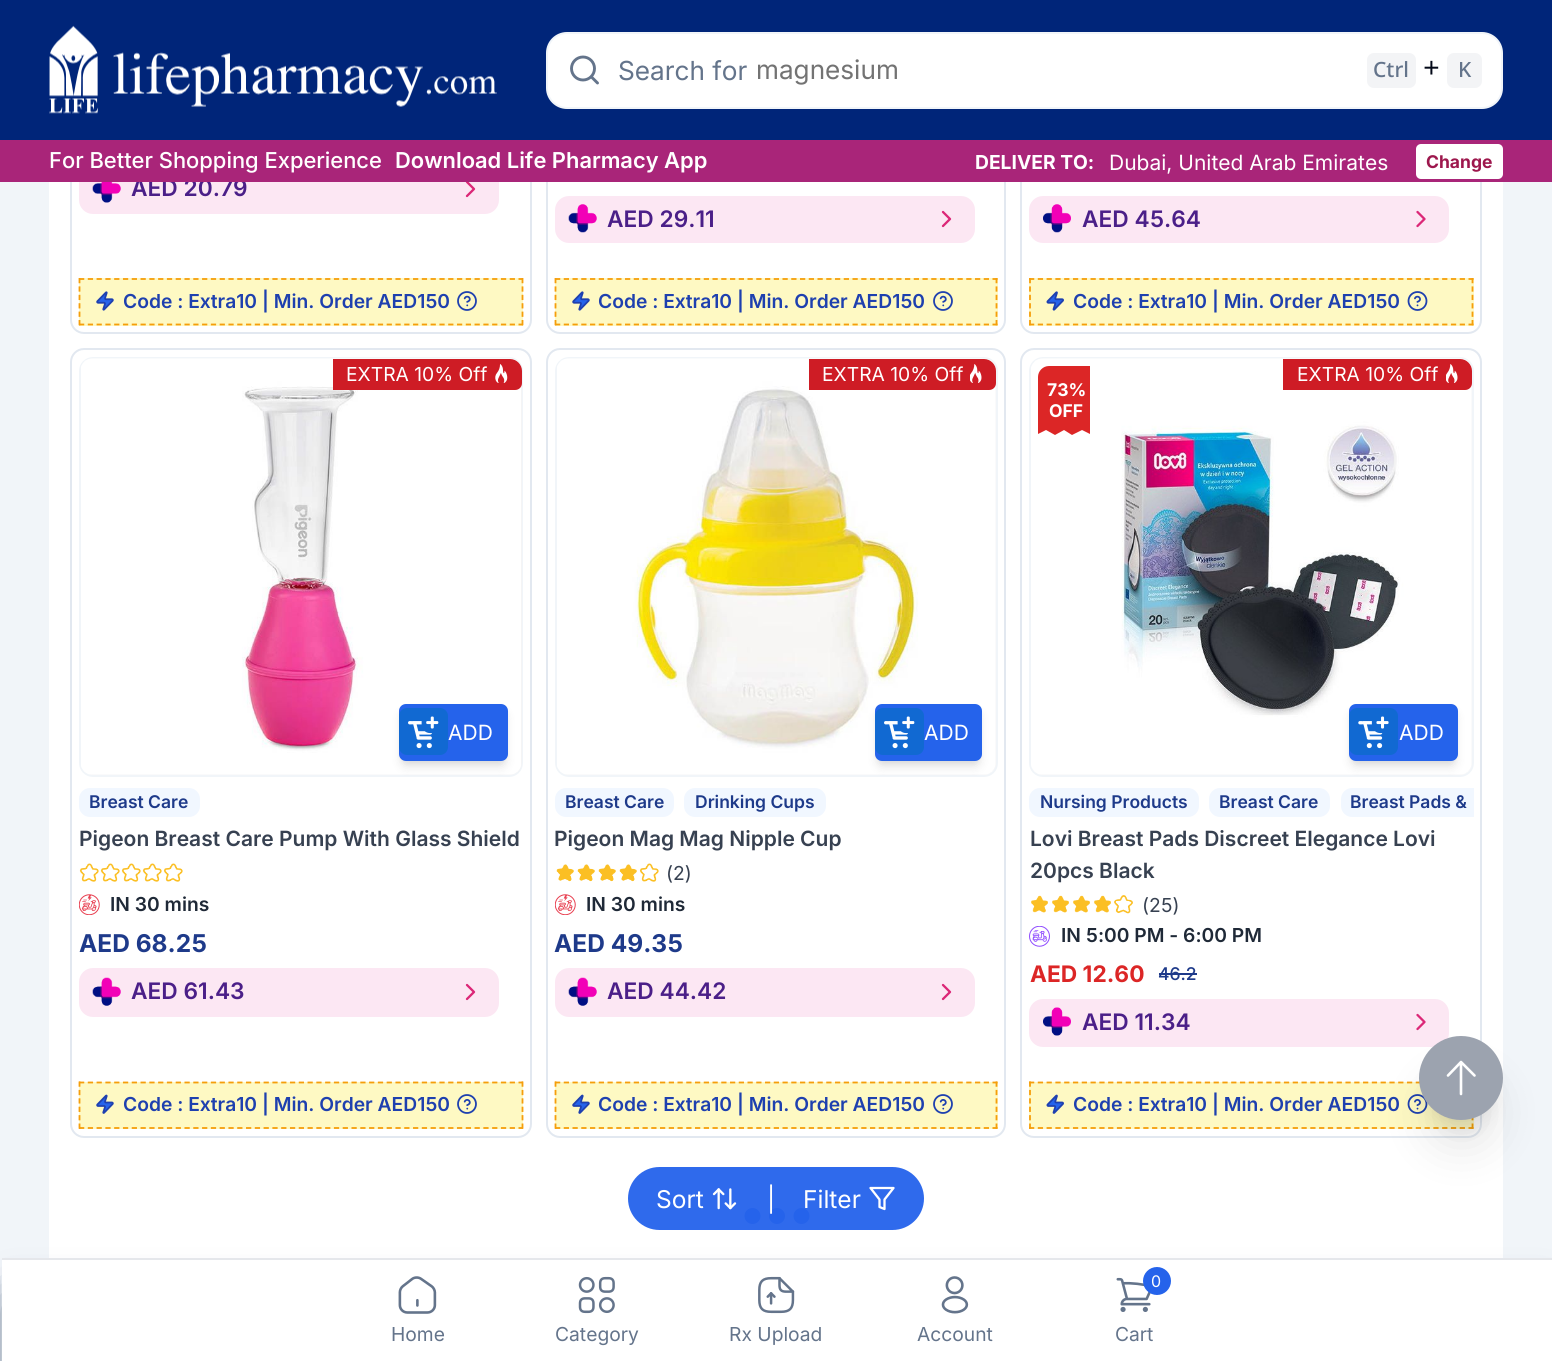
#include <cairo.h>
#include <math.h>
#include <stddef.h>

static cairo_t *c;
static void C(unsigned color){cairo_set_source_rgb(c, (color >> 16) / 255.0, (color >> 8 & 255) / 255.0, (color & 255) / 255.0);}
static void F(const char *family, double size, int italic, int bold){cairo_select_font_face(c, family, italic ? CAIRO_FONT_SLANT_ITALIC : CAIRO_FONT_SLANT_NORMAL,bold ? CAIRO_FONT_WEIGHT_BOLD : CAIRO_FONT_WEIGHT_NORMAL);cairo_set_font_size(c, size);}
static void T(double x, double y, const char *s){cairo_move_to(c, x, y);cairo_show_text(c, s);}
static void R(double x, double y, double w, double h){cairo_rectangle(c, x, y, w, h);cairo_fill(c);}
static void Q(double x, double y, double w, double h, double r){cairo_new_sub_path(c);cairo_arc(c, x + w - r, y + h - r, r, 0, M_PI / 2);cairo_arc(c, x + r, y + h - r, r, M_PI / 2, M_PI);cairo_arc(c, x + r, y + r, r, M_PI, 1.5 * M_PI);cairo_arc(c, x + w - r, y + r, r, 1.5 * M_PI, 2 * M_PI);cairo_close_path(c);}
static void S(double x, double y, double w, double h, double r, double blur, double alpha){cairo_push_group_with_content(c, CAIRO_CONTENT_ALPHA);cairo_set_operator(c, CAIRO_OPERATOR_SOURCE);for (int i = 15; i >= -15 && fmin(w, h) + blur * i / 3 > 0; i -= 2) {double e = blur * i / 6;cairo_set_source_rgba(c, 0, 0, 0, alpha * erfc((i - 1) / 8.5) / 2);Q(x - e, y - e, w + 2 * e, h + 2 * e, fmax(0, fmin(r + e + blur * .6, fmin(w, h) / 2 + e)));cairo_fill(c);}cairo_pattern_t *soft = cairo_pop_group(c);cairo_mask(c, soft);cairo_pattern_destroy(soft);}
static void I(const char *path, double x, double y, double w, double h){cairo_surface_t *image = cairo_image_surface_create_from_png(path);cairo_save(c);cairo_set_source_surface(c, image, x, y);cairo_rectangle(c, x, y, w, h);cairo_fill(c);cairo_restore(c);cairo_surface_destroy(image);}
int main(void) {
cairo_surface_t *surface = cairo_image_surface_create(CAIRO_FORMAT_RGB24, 1552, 1361);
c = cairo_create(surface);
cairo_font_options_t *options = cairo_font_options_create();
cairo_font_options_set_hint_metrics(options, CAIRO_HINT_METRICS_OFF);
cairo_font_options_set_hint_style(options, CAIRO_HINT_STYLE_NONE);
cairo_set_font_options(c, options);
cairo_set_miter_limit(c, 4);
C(0xf1f5f9);
cairo_paint(c);
C(0xffffff);
R(49,182,1454,1076);
Q(71,-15,460,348,13);
C(0xe2e8f0);
cairo_stroke(c);
Q(547,-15,458,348,13);
cairo_stroke(c);
Q(1021,-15,460,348,13);
cairo_stroke(c);
C(0x002579);
R(0,0,1552,140);
I("1.png",49,25,448,89);
C(0xffffff);
Q(547,33,955,75,20);
cairo_fill_preserve(c);
C(0xf1f5f9);
cairo_stroke(c);
cairo_arc(c,583,68.5,11.5,0,2 * M_PI);
C(0x64748b);
cairo_set_line_width(c,2.9);
cairo_stroke(c);
cairo_new_path(c);
cairo_move_to(c,597.5,83);
cairo_line_to(c,591.5,77);
cairo_set_line_cap(c,CAIRO_LINE_CAP_ROUND);
cairo_set_line_join(c,CAIRO_LINE_JOIN_ROUND);
cairo_stroke(c);
F("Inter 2",26.25,0,0);
T(618,80,"Search for");
C(0x737373);
T(756,79,"magnesium");
C(0xf3f4f6);
Q(1367,53,49,35,7);
cairo_fill(c);
F("Noto Sans Medium",21,0,0);
C(0x64748b);
T(1373,77,"Ctrl");
F("Liberation Mono",28,0,0);
C(0x020817);
T(1423,77,"+");
C(0xf3f4f6);
Q(1447,53,35,35,7);
cairo_fill(c);
F("Noto Sans Medium",21,0,0);
C(0x64748b);
T(1458,77,"K");
C(0xfce7f3);
Q(79,165,420,49,14);
cairo_fill(c);
F("Inter SemiBold",22.75,0,0);
C(0x4b1f88);
T(131,196,"AED 20.79");
cairo_new_path(c);
cairo_move_to(c,467,196);
cairo_line_to(c,474,189);
cairo_line_to(c,467,182);
C(0xdb2777);
cairo_set_line_width(c,2.3);
cairo_stroke(c);
C(0xa92579);
R(0,140,1552,42);
F("Inter Medium",21.9,0,0);
C(0xffffff);
T(49,168,"For Better Shopping Experience");
F("Inter SemiBold",21.9,0,0);
T(395,168,"Download Life Pharmacy App");
F("Inter",19.25,0,1);
T(975,169,"DELIVER TO:");
F("Inter",21,0,0);
T(1109,170,"Dubai, United Arab Emirates");
Q(1416,144,87,35,5);
cairo_fill(c);
F("Inter",17.5,0,1);
C(0x9d174d);
T(1426,168,"Change");
I("2.png",92,182,29,21);
C(0xfef9c3);
R(79,278,444,48);
cairo_new_path(c);
cairo_move_to(c,79,279);
cairo_line_to(c,523,279);
C(0xf59e0b);
cairo_set_line_width(c,1.8);
cairo_set_line_cap(c,CAIRO_LINE_CAP_BUTT);
cairo_set_line_join(c,CAIRO_LINE_JOIN_MITER);
cairo_set_dash(c,(double[]){5.25,3.54},2,0);
cairo_stroke(c);
cairo_new_path(c);
cairo_move_to(c,522.5,278);
cairo_line_to(c,522.5,325.5);
cairo_set_dash(c,(double[]){5.25,3.15},2,0);
cairo_stroke(c);
cairo_new_path(c);
cairo_move_to(c,79,324.5);
cairo_line_to(c,523,324.5);
cairo_set_dash(c,(double[]){5.25,3.54},2,0);
cairo_stroke(c);
cairo_new_path(c);
cairo_move_to(c,79.5,278);
cairo_line_to(c,79.5,325.5);
cairo_set_dash(c,(double[]){5.25,3.15},2,0);
cairo_stroke(c);
I("3.png",96,291,18,20);
F("Inter SemiBold",19.25,0,0);
C(0x1e40af);
T(123,308,"Code : Extra10 | Min. Order AED150");
I("4.png",457,291,20,20);
C(0xfce7f3);
Q(555,196,420,47,14);
cairo_fill(c);
I("5.png",568,204,29,29);
F("Inter SemiBold",22.75,0,0);
C(0x4b1f88);
T(607,227,"AED 29.11");
cairo_new_path(c);
cairo_move_to(c,943,226);
cairo_line_to(c,950,219);
cairo_line_to(c,943,212);
C(0xdb2777);
cairo_set_line_width(c,2.3);
cairo_set_line_cap(c,CAIRO_LINE_CAP_ROUND);
cairo_set_line_join(c,CAIRO_LINE_JOIN_ROUND);
cairo_set_dash(c,NULL,0,0);
cairo_stroke(c);
C(0xfef9c3);
R(555,278,443,48);
cairo_new_path(c);
cairo_move_to(c,555,279);
cairo_line_to(c,997.5,279);
C(0xf59e0b);
cairo_set_line_width(c,1.8);
cairo_set_line_cap(c,CAIRO_LINE_CAP_BUTT);
cairo_set_line_join(c,CAIRO_LINE_JOIN_MITER);
cairo_set_dash(c,(double[]){5.25,3.5},2,0);
cairo_stroke(c);
cairo_new_path(c);
cairo_move_to(c,996.5,278);
cairo_line_to(c,996.5,325.5);
cairo_set_dash(c,(double[]){5.25,3.15},2,0);
cairo_stroke(c);
cairo_new_path(c);
cairo_move_to(c,555,324.5);
cairo_line_to(c,997.5,324.5);
cairo_set_dash(c,(double[]){5.25,3.5},2,0);
cairo_stroke(c);
cairo_new_path(c);
cairo_move_to(c,555.5,278);
cairo_line_to(c,555.5,325.5);
cairo_set_dash(c,(double[]){5.25,3.15},2,0);
cairo_stroke(c);
I("3.png",572,291,18,20);
F("Inter SemiBold",19.25,0,0);
C(0x1e40af);
T(598,308,"Code : Extra10 | Min. Order AED150");
I("4.png",933,291,20,20);
C(0xfce7f3);
Q(1029,196,420,47,14);
cairo_fill(c);
I("6.png",1043,204,28,29);
F("Inter SemiBold",22.75,0,0);
C(0x4b1f88);
T(1082,227,"AED 45.64");
cairo_new_path(c);
cairo_move_to(c,1417.5,226);
cairo_line_to(c,1424.5,219);
cairo_line_to(c,1417.5,212);
C(0xdb2777);
cairo_set_line_width(c,2.3);
cairo_set_line_cap(c,CAIRO_LINE_CAP_ROUND);
cairo_set_line_join(c,CAIRO_LINE_JOIN_ROUND);
cairo_set_dash(c,NULL,0,0);
cairo_stroke(c);
C(0xfef9c3);
R(1029,278,445,48);
cairo_new_path(c);
cairo_move_to(c,1029,279);
cairo_line_to(c,1473.5,279);
C(0xf59e0b);
cairo_set_line_width(c,1.8);
cairo_set_line_cap(c,CAIRO_LINE_CAP_BUTT);
cairo_set_line_join(c,CAIRO_LINE_JOIN_MITER);
cairo_set_dash(c,(double[]){5.25,3.54},2,0);
cairo_stroke(c);
cairo_new_path(c);
cairo_move_to(c,1472.5,278);
cairo_line_to(c,1472.5,325.5);
cairo_set_dash(c,(double[]){5.25,3.15},2,0);
cairo_stroke(c);
cairo_new_path(c);
cairo_move_to(c,1029,324.5);
cairo_line_to(c,1473.5,324.5);
cairo_set_dash(c,(double[]){5.25,3.54},2,0);
cairo_stroke(c);
cairo_new_path(c);
cairo_move_to(c,1030,278);
cairo_line_to(c,1030,325.5);
cairo_set_dash(c,(double[]){5.25,3.15},2,0);
cairo_stroke(c);
I("7.png",1046,291,18,20);
F("Inter SemiBold",19.25,0,0);
C(0x1e40af);
T(1073,308,"Code : Extra10 | Min. Order AED150");
I("8.png",1407,291,21,20);
Q(71,349,460,788,13);
C(0xe2e8f0);
cairo_set_line_width(c,2);
cairo_set_dash(c,NULL,0,0);
cairo_stroke(c);
Q(80,358,442,418,13);
C(0xf1f5f9);
cairo_stroke(c);
cairo_save(c);
Q(81,359,441,416,12);
cairo_clip(c);
C(0xf4f4f5);
Q(81,359,441,420,14);
cairo_fill(c);
cairo_restore(c);
I("9.png",81,358,440,417);
C(0xce1c25);
cairo_new_path(c);
cairo_move_to(c,333,359);
cairo_line_to(c,510,359);
cairo_curve_to(c,516.5,359,522,364.5,522,371);
cairo_line_to(c,522,383);
cairo_curve_to(c,522,387,519,390,515,390);
cairo_line_to(c,333,390);
cairo_close_path(c);
cairo_fill(c);
F("Inter",19.25,0,0);
C(0xffffff);
T(346,381,"EXTRA 10% Off");
I("10.png",495,364,13,19);
C(0x000000);
S(403,711,101,50,4,3.5,.1);
S(401,712,105,55,5,5,.1);
C(0x2563eb);
Q(399,704,109,57,7);
cairo_fill(c);
I("11.png",399,708,49,47);
F("Inter",21,0,0);
C(0xffffff);
T(448,740,"ADD");
C(0xf1f7ff);
Q(79,788,121,29,11);
cairo_fill(c);
F("Inter SemiBold",17.5,0,0);
C(0x1e3a8a);
T(89,808,"Breast Care");
F("Inter SemiBold",21,0,0);
C(0x374151);
T(79,846,"Pigeon Breast Care Pump With Glass Shield");
I("12.png",79,863,20,19);
I("12.png",100,863,20,19);
I("12.png",121,863,20,19);
I("12.png",142,863,20,19);
I("12.png",163,863,20,19);
I("13.png",79,894,21,21);
F("Inter SemiBold",19.25,0,0);
C(0x1f2937);
T(110,911,"IN 30 mins");
F("Inter",24.5,0,1);
C(0x1e3a8a);
T(79,952,"AED 68.25");
C(0xfce7f3);
Q(79,968,420,49,14);
cairo_fill(c);
I("14.png",92,977,29,29);
F("Inter SemiBold",22.75,0,0);
C(0x4b1f88);
T(131,999,"AED 61.43");
cairo_new_path(c);
cairo_move_to(c,467,999);
cairo_line_to(c,474,992);
cairo_line_to(c,467,985);
C(0xdb2777);
cairo_set_line_width(c,2.3);
cairo_set_line_cap(c,CAIRO_LINE_CAP_ROUND);
cairo_set_line_join(c,CAIRO_LINE_JOIN_ROUND);
cairo_stroke(c);
C(0xfef9c3);
R(79,1082,444,47);
cairo_new_path(c);
cairo_move_to(c,79,1082.5);
cairo_line_to(c,523,1082.5);
C(0xf59e0b);
cairo_set_line_width(c,1.8);
cairo_set_line_cap(c,CAIRO_LINE_CAP_BUTT);
cairo_set_line_join(c,CAIRO_LINE_JOIN_MITER);
cairo_set_dash(c,(double[]){5.25,3.54},2,0);
cairo_stroke(c);
cairo_new_path(c);
cairo_move_to(c,522.5,1081.5);
cairo_line_to(c,522.5,1129);
cairo_set_dash(c,(double[]){5.25,3.15},2,0);
cairo_stroke(c);
cairo_new_path(c);
cairo_move_to(c,79,1128);
cairo_line_to(c,523,1128);
cairo_set_dash(c,(double[]){5.25,3.54},2,0);
cairo_stroke(c);
cairo_new_path(c);
cairo_move_to(c,79.5,1081.5);
cairo_line_to(c,79.5,1129);
cairo_set_dash(c,(double[]){5.25,3.15},2,0);
cairo_stroke(c);
I("15.png",96,1094,18,20);
F("Inter SemiBold",19.25,0,0);
C(0x1e40af);
T(123,1111,"Code : Extra10 | Min. Order AED150");
I("16.png",457,1094,20,20);
Q(547,349,458,788,13);
C(0xe2e8f0);
cairo_set_line_width(c,2);
cairo_set_dash(c,NULL,0,0);
cairo_stroke(c);
Q(556,358,441,418,13);
C(0xf1f5f9);
cairo_stroke(c);
cairo_save(c);
Q(557,359,439,416,12);
cairo_clip(c);
C(0xf4f4f5);
Q(557,359,439,420,14);
cairo_fill(c);
cairo_restore(c);
I("17.png",557,358,439,417);
C(0xce1c25);
cairo_new_path(c);
cairo_move_to(c,809,359);
cairo_line_to(c,984,359);
cairo_curve_to(c,990.5,359,996,364.5,996,371);
cairo_line_to(c,996,383);
cairo_curve_to(c,996,387,993,390,989,390);
cairo_line_to(c,809,390);
cairo_close_path(c);
cairo_fill(c);
F("Inter",19.25,0,0);
C(0xffffff);
T(822,381,"EXTRA 10% Off");
I("18.png",970,364,12,19);
C(0x000000);
S(879,711,99,50,4,3.5,.1);
S(877,712,103,55,5,5,.1);
C(0x2563eb);
Q(875,704,107,57,7);
cairo_fill(c);
I("11.png",875,708,49,47);
F("Inter",21,0,0);
C(0xffffff);
T(924,740,"ADD");
C(0xf1f7ff);
Q(555,788,119,29,11);
cairo_fill(c);
F("Inter SemiBold",17.5,0,0);
C(0x1e3a8a);
T(565,808,"Breast Care");
C(0xf1f7ff);
Q(684,788,142,29,11);
cairo_fill(c);
C(0x1e3a8a);
T(695,808,"Drinking Cups");
F("Inter SemiBold",21,0,0);
C(0x374151);
T(554,846,"Pigeon Mag Mag Nipple Cup");
I("19.png",556,864,18,18);
I("19.png",577,864,18,18);
I("19.png",598,864,18,18);
I("19.png",619,864,18,18);
I("12.png",639,863,20,19);
cairo_save(c);
cairo_rectangle(c,667,865,24,19);
cairo_clip(c);
F("Inter",19.25,0,0);
T(666,880,"(2)");
cairo_restore(c);
I("13.png",555,894,21,21);
F("Inter SemiBold",19.25,0,0);
C(0x1f2937);
T(586,911,"IN 30 mins");
F("Inter",24.5,0,1);
C(0x1e3a8a);
T(554,952,"AED 49.35");
C(0xfce7f3);
Q(555,968,420,49,14);
cairo_fill(c);
I("20.png",568,977,29,29);
F("Inter SemiBold",22.75,0,0);
C(0x4b1f88);
T(607,999,"AED 44.42");
cairo_new_path(c);
cairo_move_to(c,943,999);
cairo_line_to(c,950,992);
cairo_line_to(c,943,985);
C(0xdb2777);
cairo_set_line_width(c,2.3);
cairo_set_line_cap(c,CAIRO_LINE_CAP_ROUND);
cairo_set_line_join(c,CAIRO_LINE_JOIN_ROUND);
cairo_stroke(c);
C(0xfef9c3);
R(555,1082,443,47);
cairo_new_path(c);
cairo_move_to(c,555,1082.5);
cairo_line_to(c,997.5,1082.5);
C(0xf59e0b);
cairo_set_line_width(c,1.8);
cairo_set_line_cap(c,CAIRO_LINE_CAP_BUTT);
cairo_set_line_join(c,CAIRO_LINE_JOIN_MITER);
cairo_set_dash(c,(double[]){5.25,3.5},2,0);
cairo_stroke(c);
cairo_new_path(c);
cairo_move_to(c,996.5,1081.5);
cairo_line_to(c,996.5,1129);
cairo_set_dash(c,(double[]){5.25,3.15},2,0);
cairo_stroke(c);
cairo_new_path(c);
cairo_move_to(c,555,1128);
cairo_line_to(c,997.5,1128);
cairo_set_dash(c,(double[]){5.25,3.5},2,0);
cairo_stroke(c);
cairo_new_path(c);
cairo_move_to(c,555.5,1081.5);
cairo_line_to(c,555.5,1129);
cairo_set_dash(c,(double[]){5.25,3.15},2,0);
cairo_stroke(c);
I("15.png",572,1094,18,20);
F("Inter SemiBold",19.25,0,0);
C(0x1e40af);
T(598,1111,"Code : Extra10 | Min. Order AED150");
I("16.png",933,1094,20,20);
Q(1021,349,460,788,13);
C(0xe2e8f0);
cairo_set_line_width(c,2);
cairo_set_dash(c,NULL,0,0);
cairo_stroke(c);
Q(1030,358,443,418,13);
C(0xf1f5f9);
cairo_stroke(c);
cairo_save(c);
Q(1031,359,441,416,12);
cairo_clip(c);
C(0xf4f4f5);
Q(1031,359,441,420,14);
cairo_fill(c);
cairo_restore(c);
I("21.png",1031,358,441,417);
C(0xce1c25);
cairo_new_path(c);
cairo_move_to(c,1283,359);
cairo_line_to(c,1460,359);
cairo_curve_to(c,1466.5,359,1472,364.5,1472,371);
cairo_line_to(c,1472,383);
cairo_curve_to(c,1472,387,1469,390,1465,390);
cairo_line_to(c,1283,390);
cairo_close_path(c);
cairo_fill(c);
F("Inter",19.25,0,0);
C(0xffffff);
T(1297,381,"EXTRA 10% Off");
I("18.png",1446,364,12,19);
C(0xdc2626);
cairo_new_path(c);
cairo_move_to(c,1049,366);
cairo_curve_to(c,1043,366,1038,371,1038,377);
cairo_line_to(c,1038,434);
cairo_line_to(c,1046,430);
cairo_line_to(c,1055,435);
cairo_line_to(c,1064,430);
cairo_line_to(c,1072,435);
cairo_line_to(c,1082,430);
cairo_line_to(c,1090,434);
cairo_line_to(c,1090,366);
cairo_close_path(c);
cairo_fill(c);
F("Inter",17.5,0,1);
C(0xffffff);
T(1047,396,"73%");
T(1049,417,"OFF");
C(0x000000);
S(1353,711,101,50,4,3.5,.1);
S(1351,712,105,55,5,5,.1);
C(0x2563eb);
Q(1349,704,109,57,7);
cairo_fill(c);
I("22.png",1349,708,49,47);
F("Inter",21,0,0);
C(0xffffff);
T(1399,740,"ADD");
C(0xf1f7ff);
Q(1029,788,170,29,11);
cairo_fill(c);
F("Inter SemiBold",17.5,0,0);
C(0x1e3a8a);
T(1040,808,"Nursing Products");
C(0xf1f7ff);
Q(1209,788,121,29,11);
cairo_fill(c);
C(0x1e3a8a);
T(1219,808,"Breast Care");
C(0xf1f7ff);
cairo_new_path(c);
cairo_move_to(c,1352,788);
cairo_line_to(c,1474,788);
cairo_line_to(c,1474,817);
cairo_line_to(c,1352,817);
cairo_curve_to(c,1346,817,1341,812,1341,806);
cairo_line_to(c,1341,799);
cairo_curve_to(c,1341,793,1346,788,1352,788);
cairo_close_path(c);
cairo_fill(c);
C(0x1e3a8a);
T(1350,808,"Breast Pads &");
F("Inter SemiBold",21,0,0);
C(0x374151);
T(1030,846,"Lovi Breast Pads Discreet Elegance Lovi");
T(1030,878,"20pcs Black");
I("23.png",1031,895,17,18);
I("23.png",1052,895,17,18);
I("23.png",1073,895,17,18);
I("23.png",1094,895,17,18);
I("24.png",1114,895,19,19);
F("Inter",19.25,0,0);
T(1142,912,"(25)");
I("25.png",1029,926,21,21);
F("Inter SemiBold",19.25,0,0);
C(0x1f2937);
T(1061,942,"IN 5:00 PM - 6:00 PM");
F("Inter",22.75,0,1);
C(0xdc2626);
T(1030,982,"AED 12.60");
F("Inter Medium",17.5,0,0);
C(0x1e3a8a);
T(1158,980,"46.2");
R(1159,973,38,2);
C(0xfce7f3);
Q(1029,999,420,48,14);
cairo_fill(c);
I("26.png",1043,1007,28,29);
F("Inter SemiBold",22.75,0,0);
C(0x4b1f88);
T(1082,1030,"AED 11.34");
cairo_new_path(c);
cairo_move_to(c,1417.5,1029);
cairo_line_to(c,1424.5,1022);
cairo_line_to(c,1417.5,1015);
C(0xdb2777);
cairo_set_line_width(c,2.3);
cairo_set_line_cap(c,CAIRO_LINE_CAP_ROUND);
cairo_set_line_join(c,CAIRO_LINE_JOIN_ROUND);
cairo_stroke(c);
C(0xfef9c3);
R(1029,1082,445,47);
cairo_new_path(c);
cairo_move_to(c,1029,1082.5);
cairo_line_to(c,1473.5,1082.5);
C(0xf59e0b);
cairo_set_line_width(c,1.8);
cairo_set_line_cap(c,CAIRO_LINE_CAP_BUTT);
cairo_set_line_join(c,CAIRO_LINE_JOIN_MITER);
cairo_set_dash(c,(double[]){5.25,3.54},2,0);
cairo_stroke(c);
cairo_new_path(c);
cairo_move_to(c,1472.5,1081.5);
cairo_line_to(c,1472.5,1129);
cairo_set_dash(c,(double[]){5.25,3.15},2,0);
cairo_stroke(c);
cairo_new_path(c);
cairo_move_to(c,1029,1128);
cairo_line_to(c,1473.5,1128);
cairo_set_dash(c,(double[]){5.25,3.54},2,0);
cairo_stroke(c);
cairo_new_path(c);
cairo_move_to(c,1030,1081.5);
cairo_line_to(c,1030,1129);
cairo_set_dash(c,(double[]){5.25,3.15},2,0);
cairo_stroke(c);
I("27.png",1046,1094,18,20);
F("Inter SemiBold",19.25,0,0);
C(0x1e40af);
T(1073,1111,"Code : Extra10 | Min. Order AED150");
I("28.png",1407,1094,21,20);
C(0x2563eb);
cairo_arc(c,752.5,1216,8,0,2 * M_PI);
cairo_fill(c);
cairo_arc(c,777,1216,8,0,2 * M_PI);
cairo_fill(c);
cairo_arc(c,801.5,1216,8,0,2 * M_PI);
cairo_fill(c);
cairo_set_source_rgba(c,0.145,0.388,0.922,0.95);
Q(628,1167,296,63,31.5);
cairo_fill(c);
F("Inter",24.5,0,0);
C(0xffffff);
T(656,1208,"Sort");
I("29.png",712,1188,25,22);
T(767,1208,"|");
T(803,1208,"Filter");
cairo_new_path(c);
cairo_move_to(c,893.5,1188);
cairo_line_to(c,870.5,1188);
cairo_line_to(c,879.5,1199.5);
cairo_line_to(c,879.5,1207);
cairo_line_to(c,884.5,1209);
cairo_line_to(c,884.5,1199.5);
cairo_close_path(c);
cairo_set_line_width(c,2.3);
cairo_set_line_cap(c,CAIRO_LINE_CAP_ROUND);
cairo_set_line_join(c,CAIRO_LINE_JOIN_ROUND);
cairo_set_dash(c,NULL,0,0);
cairo_stroke(c);
C(0x000000);
S(1430,1061,63,63,31.5,9,.1);
S(1428,1080,67,66,33,22,.1);
C(0x9ca3af);
cairo_arc(c,1461,1078,42,0,2 * M_PI);
cairo_fill(c);
cairo_new_path(c);
cairo_move_to(c,1448,1075.5);
cairo_line_to(c,1461,1062);
cairo_move_to(c,1461,1062);
cairo_line_to(c,1474.5,1075.5);
cairo_move_to(c,1461,1062);
cairo_line_to(c,1461,1094);
C(0xffffff);
cairo_set_line_width(c,2.6);
cairo_stroke(c);
cairo_save(c);
cairo_rectangle(c,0,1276,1,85);
cairo_clip(c);
C(0x64748b);
S(12,1283,1532,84,0,9,1);
cairo_restore(c);
cairo_save(c);
cairo_set_fill_rule(c,CAIRO_FILL_RULE_EVEN_ODD);
cairo_new_path(c);
cairo_move_to(c,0,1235);
cairo_line_to(c,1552,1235);
cairo_line_to(c,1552,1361);
cairo_line_to(c,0,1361);
cairo_close_path(c);
cairo_move_to(c,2,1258);
cairo_line_to(c,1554,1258);
cairo_line_to(c,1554,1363);
cairo_line_to(c,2,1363);
cairo_close_path(c);
cairo_clip(c);
C(0x64748b);
S(11,1302,1534,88,0,22,1);
cairo_restore(c);
R(2,1260,1550,101);
C(0xe5e7eb);
R(2,1258,1550,2);
I("30.png",398,1276,39,38);
F("Inter",19.25,0,0);
C(0x64748b);
T(391,1341,"Home");
I("31.png",578,1276,37,38);
T(555,1341,"Category");
I("32.png",758,1276,37,38);
T(729,1341,"Rx Upload");
I("33.png",941,1276,28,38);
T(917,1341,"Account");
I("34.png",1116,1277,35,35);
C(0x2563eb);
cairo_arc(c,1157,1281,14,0,2 * M_PI);
cairo_fill(c);
F("Inter",16,0,0);
C(0xffffff);
T(1151,1287,"0");
F("Inter",19.25,0,0);
C(0x64748b);
T(1115,1341,"Cart");
cairo_surface_write_to_png(surface, "o.png");
cairo_font_options_destroy(options);
cairo_destroy(c);
cairo_surface_destroy(surface);
return 0;
}
